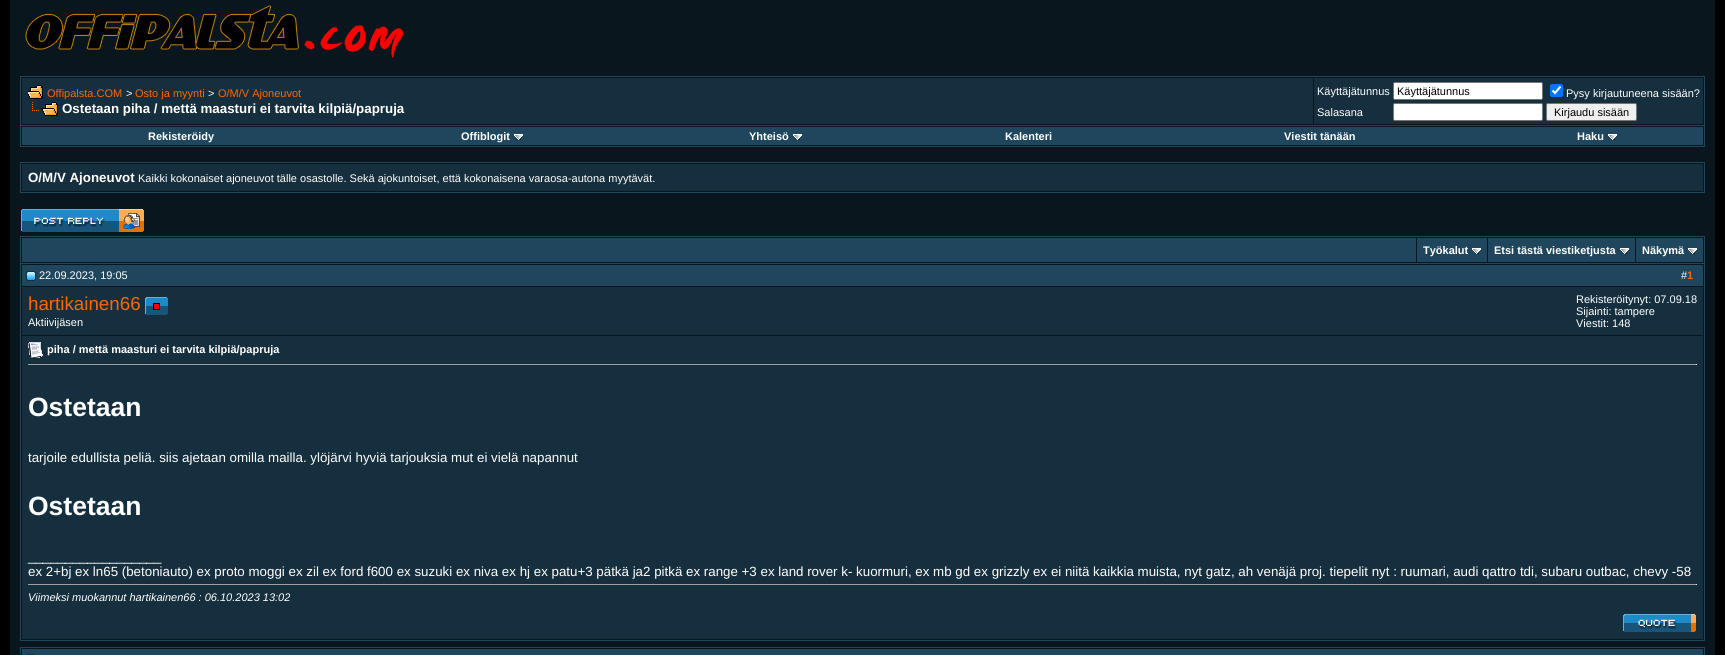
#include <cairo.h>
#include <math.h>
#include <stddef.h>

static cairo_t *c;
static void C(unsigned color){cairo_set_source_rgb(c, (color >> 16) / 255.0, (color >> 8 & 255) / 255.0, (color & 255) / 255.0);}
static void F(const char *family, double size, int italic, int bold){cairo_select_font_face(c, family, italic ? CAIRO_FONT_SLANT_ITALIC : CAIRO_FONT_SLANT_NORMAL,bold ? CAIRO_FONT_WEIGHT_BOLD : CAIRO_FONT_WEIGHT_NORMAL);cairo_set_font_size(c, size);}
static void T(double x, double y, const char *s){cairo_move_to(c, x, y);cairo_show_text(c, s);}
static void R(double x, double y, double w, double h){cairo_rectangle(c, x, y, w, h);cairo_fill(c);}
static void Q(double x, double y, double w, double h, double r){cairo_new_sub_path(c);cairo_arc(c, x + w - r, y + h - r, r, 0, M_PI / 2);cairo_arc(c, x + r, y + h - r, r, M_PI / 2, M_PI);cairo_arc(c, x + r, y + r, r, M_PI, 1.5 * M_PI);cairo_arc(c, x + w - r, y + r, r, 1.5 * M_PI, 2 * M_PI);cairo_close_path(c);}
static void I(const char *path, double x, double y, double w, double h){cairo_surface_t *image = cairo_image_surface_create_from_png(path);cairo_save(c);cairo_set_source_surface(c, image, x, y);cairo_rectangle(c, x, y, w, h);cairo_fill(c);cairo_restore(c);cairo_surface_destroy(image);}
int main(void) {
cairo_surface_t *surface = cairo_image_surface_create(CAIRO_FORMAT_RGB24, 1725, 655);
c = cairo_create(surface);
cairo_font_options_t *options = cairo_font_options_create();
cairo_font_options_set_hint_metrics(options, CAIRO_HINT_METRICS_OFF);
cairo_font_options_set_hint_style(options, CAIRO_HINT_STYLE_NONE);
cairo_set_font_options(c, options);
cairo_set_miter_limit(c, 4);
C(0x000000);
cairo_paint(c);
C(0x0a161d);
R(10,0,1705,655);
I("1.png",25,5,379,53);
cairo_rectangle(c,20.5,76.5,1684,49);
C(0x1f465c);
cairo_set_line_width(c,1);
cairo_stroke(c);
C(0x152f3e);
R(22,78,1291,46);
I("2.png",28,85,15,14);
F("Liberation Sans",11,0,0);
C(0xff6600);
T(47,97,"Offipalsta.COM");
C(0xffffff);
T(126,97,">");
C(0xff6600);
T(135,97,"Osto ja myynti");
C(0xffffff);
T(208,97,">");
C(0xff6600);
T(218,97,"O/M/V Ajoneuvot");
I("3.png",32,102,26,15);
F("Liberation Sans",13.33,0,1);
C(0xffffff);
T(62,113,"Ostetaan piha / mettä maasturi ei tarvita kilpiä/papruja");
C(0x152f3e);
R(1314,78,389,46);
F("Liberation Sans",11,0,0);
C(0xffffff);
T(1317,95,"Käyttäjätunnus");
Q(1393.5,82.5,149,17,1.5);
cairo_fill_preserve(c);
C(0x767676);
cairo_stroke(c);
cairo_save(c);
cairo_rectangle(c,1397,85,142,12);
cairo_clip(c);
C(0x000000);
T(1397,95,"Käyttäjätunnus");
cairo_restore(c);
C(0x0075ff);
Q(1550,84,13,13,2);
cairo_fill(c);
cairo_new_path(c);
cairo_move_to(c,1552.5,90.5);
cairo_line_to(c,1555,93);
cairo_line_to(c,1560.5,86.5);
C(0xffffff);
cairo_set_line_width(c,2.1);
cairo_stroke(c);
T(1566,97,"Pysy kirjautuneena sisään?");
T(1317,116,"Salasana");
Q(1393.5,103.5,149,17,1.5);
cairo_fill_preserve(c);
C(0x767676);
cairo_set_line_width(c,1);
cairo_stroke(c);
C(0xefefef);
Q(1546.5,103.5,90,17,1.5);
cairo_fill_preserve(c);
C(0x767676);
cairo_stroke(c);
C(0x000000);
T(1554,116,"Kirjaudu sisään");
C(0x1f465c);
R(1704,126,1,21);
R(20,146,1685,1);
R(20,126,1,21);
R(22,127,1681,18);
F("Liberation Sans",11,0,1);
C(0xffffff);
T(148,140,"Rekisteröidy");
T(461,140,"Offiblogit");
I("4.png",514,134,9,6);
T(749,140,"Yhteisö");
I("4.png",793,134,9,6);
T(1005,140,"Kalenteri");
T(1284,140,"Viestit tänään");
T(1577,140,"Haku");
I("4.png",1608,134,9,6);
cairo_rectangle(c,20.5,162.5,1684,30);
C(0x1f465c);
cairo_stroke(c);
C(0x152f3e);
R(22,164,1681,27);
F("Liberation Sans",13.33,0,1);
C(0xffffff);
T(28,182,"O/M/V Ajoneuvot");
F("Liberation Sans",11,0,0);
T(138,182,"Kaikki kokonaiset ajoneuvot tälle osastolle. Sekä ajokuntoiset, että kokonaisena varaosa-autona myytävät.");
I("5.png",21,209,123,23);
C(0x1f465c);
R(20,236,1685,1);
R(1704,236,1,27);
R(20,236,1,27);
R(22,238,1394,24);
R(1417,238,70,24);
F("Liberation Sans",11,0,1);
C(0xffffff);
T(1423,254,"Työkalut");
I("4.png",1472,248,9,6);
C(0x1f465c);
R(1488,238,147,24);
C(0xffffff);
T(1494,254,"Etsi tästä viestiketjusta");
I("4.png",1620,248,9,6);
C(0x1f465c);
R(1636,238,67,24);
C(0xffffff);
T(1642,254,"Näkymä");
I("4.png",1688,248,9,6);
cairo_rectangle(c,20.5,263.5,1684,377);
C(0x1f465c);
cairo_stroke(c);
R(22,265,1681,21);
I("6.png",26,271,10,10);
F("Liberation Sans",11,0,0);
C(0xffffff);
T(39,279,"22.09.2023, 19:05");
T(1681,279,"#");
F("Liberation Sans",11,0,1);
C(0xff6600);
T(1687,279,"1");
C(0x152f3e);
R(22,287,1681,48);
F("Liberation Sans",18.75,0,0);
C(0xff6600);
T(28,310,"hartikainen66");
I("7.png",145,297,23,18);
F("Liberation Sans",11,0,0);
C(0xffffff);
T(28,326,"Aktiivijäsen");
T(1576,303,"Rekisteröitynyt: 07.09.18");
T(1576,315,"Sijainti: tampere");
T(1576,327,"Viestit: 148");
C(0x152f3e);
R(22,336,1681,303);
I("8.png",28,342,15,16);
F("Liberation Sans",11,0,1);
C(0xffffff);
T(47,353,"piha / mettä maasturi ei tarvita kilpiä/papruja");
C(0x9f9f9f);
R(28,364,1669,1);
C(0xeeeeee);
R(1696,364,1,1);
F("Liberation Sans",26.5,0,1);
C(0xffffff);
T(28,416,"Ostetaan");
F("Liberation Sans",13.33,0,0);
T(28,462,"tarjoile edullista peliä. siis ajetaan omilla mailla. ylöjärvi hyviä tarjouksia mut ei vielä napannut");
F("Liberation Sans",26.5,0,1);
T(28,515,"Ostetaan");
F("Liberation Sans",13.33,0,0);
T(28,561,"__________________");
T(28,576,"ex 2+bj ex ln65 (betoniauto) ex proto moggi ex zil ex ford f600 ex suzuki ex niva ex hj ex patu+3 pätkä ja2 pitkä ex range +3 ex land rover k- kuormuri, ex mb gd ex grizzly ex ei niitä kaikkia muista, nyt gatz, ah venäjä proj. tiepelit nyt : ruumari, audi qattro tdi, subaru outbac, chevy -58");
C(0x9f9f9f);
R(28,584,1669,1);
C(0xeeeeee);
R(1696,584,1,1);
F("Liberation Sans",11,1,0);
C(0xffffff);
T(28,601,"Viimeksi muokannut hartikainen66 : 06.10.2023 13:02");
I("9.png",1623,614,73,18);
cairo_rectangle(c,20.5,647.5,1684,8);
C(0x1f465c);
cairo_stroke(c);
R(22,649,1681,6);
C(0x152f3e);
R(27,654,8,1);
cairo_surface_write_to_png(surface, "o.png");
cairo_font_options_destroy(options);
cairo_destroy(c);
cairo_surface_destroy(surface);
return 0;
}
